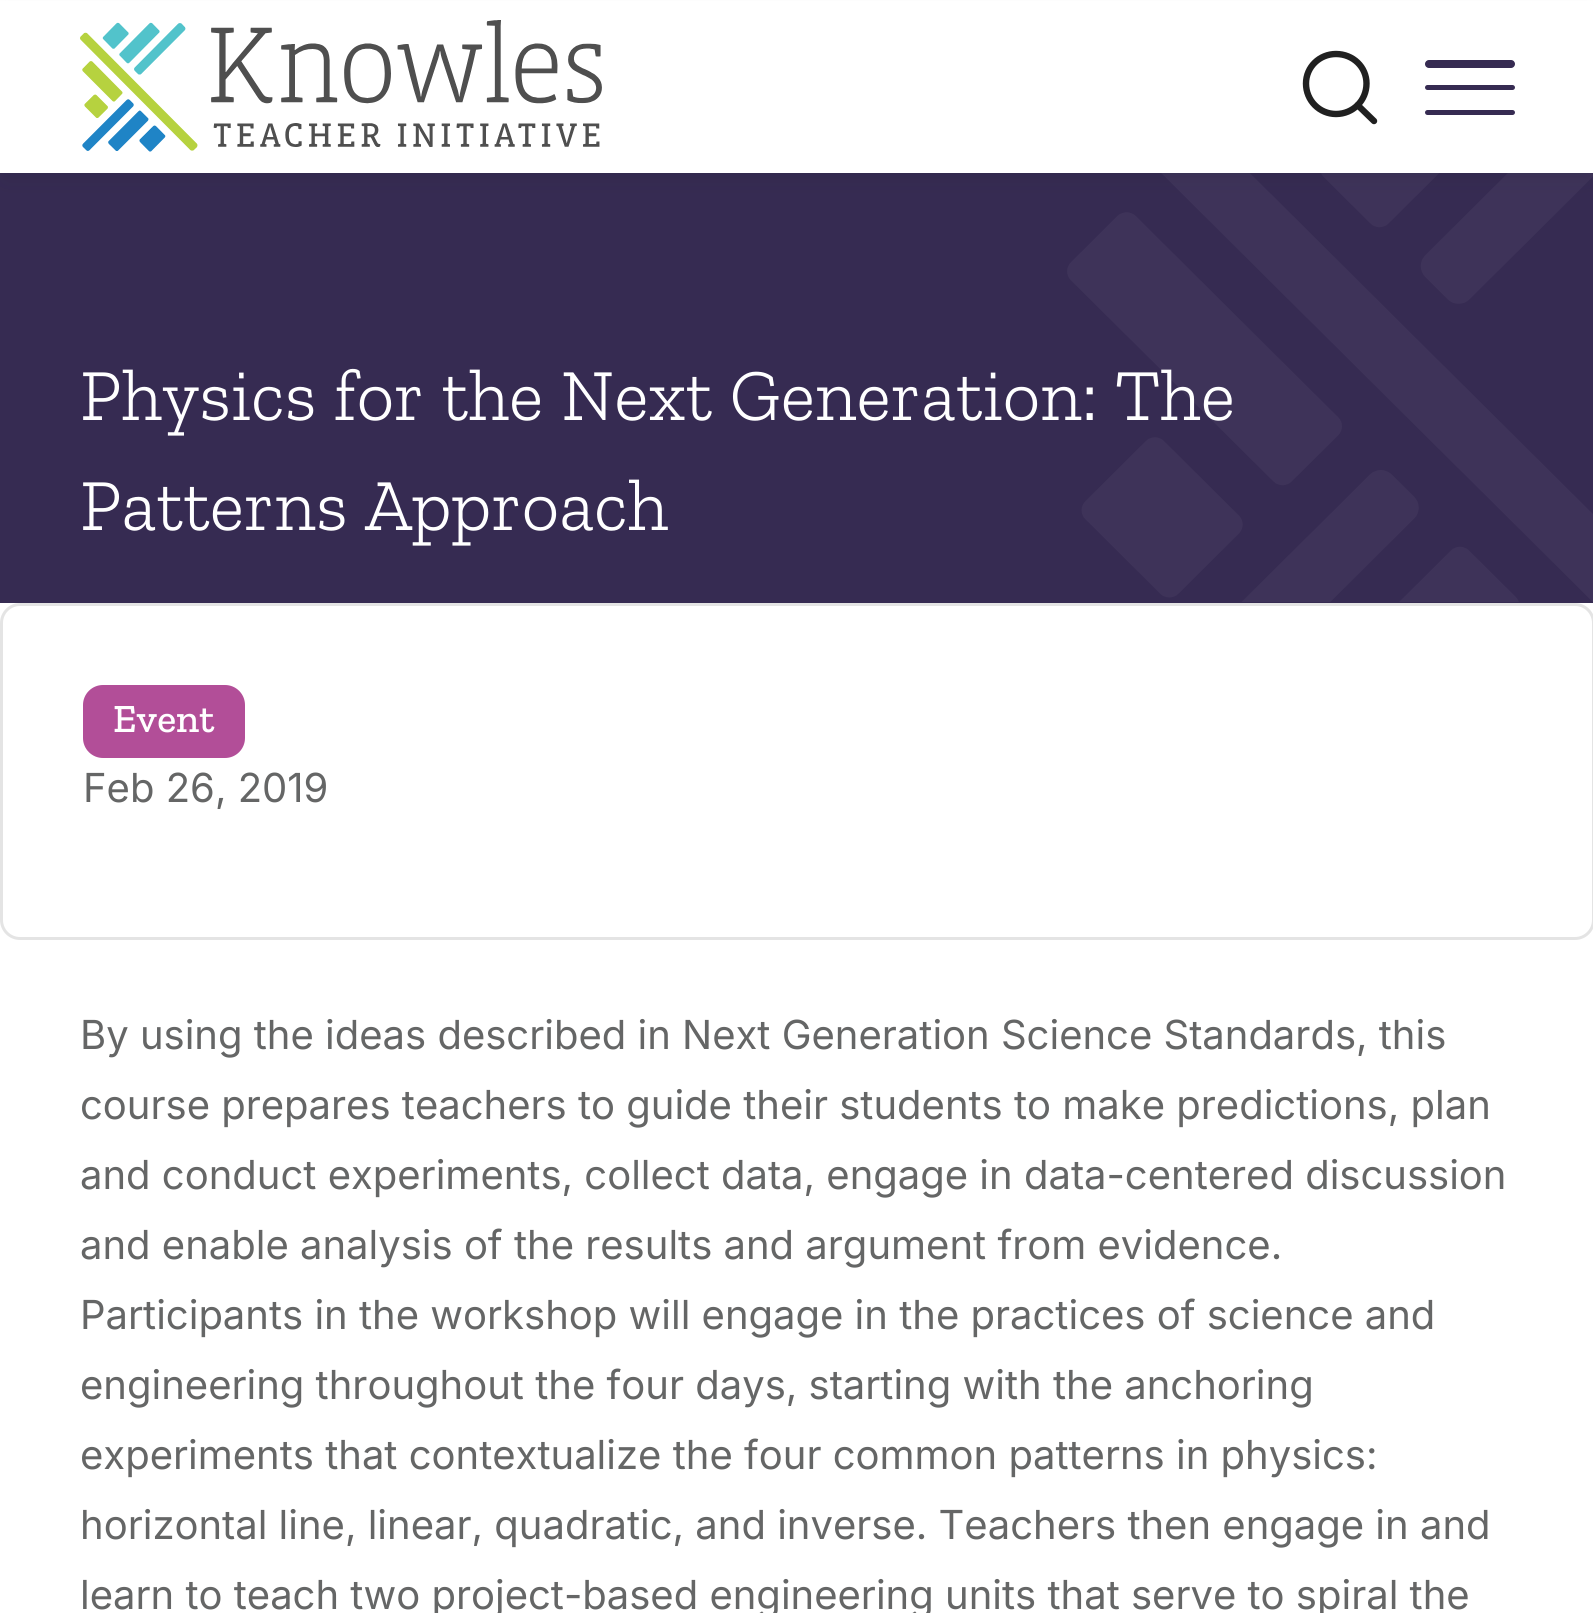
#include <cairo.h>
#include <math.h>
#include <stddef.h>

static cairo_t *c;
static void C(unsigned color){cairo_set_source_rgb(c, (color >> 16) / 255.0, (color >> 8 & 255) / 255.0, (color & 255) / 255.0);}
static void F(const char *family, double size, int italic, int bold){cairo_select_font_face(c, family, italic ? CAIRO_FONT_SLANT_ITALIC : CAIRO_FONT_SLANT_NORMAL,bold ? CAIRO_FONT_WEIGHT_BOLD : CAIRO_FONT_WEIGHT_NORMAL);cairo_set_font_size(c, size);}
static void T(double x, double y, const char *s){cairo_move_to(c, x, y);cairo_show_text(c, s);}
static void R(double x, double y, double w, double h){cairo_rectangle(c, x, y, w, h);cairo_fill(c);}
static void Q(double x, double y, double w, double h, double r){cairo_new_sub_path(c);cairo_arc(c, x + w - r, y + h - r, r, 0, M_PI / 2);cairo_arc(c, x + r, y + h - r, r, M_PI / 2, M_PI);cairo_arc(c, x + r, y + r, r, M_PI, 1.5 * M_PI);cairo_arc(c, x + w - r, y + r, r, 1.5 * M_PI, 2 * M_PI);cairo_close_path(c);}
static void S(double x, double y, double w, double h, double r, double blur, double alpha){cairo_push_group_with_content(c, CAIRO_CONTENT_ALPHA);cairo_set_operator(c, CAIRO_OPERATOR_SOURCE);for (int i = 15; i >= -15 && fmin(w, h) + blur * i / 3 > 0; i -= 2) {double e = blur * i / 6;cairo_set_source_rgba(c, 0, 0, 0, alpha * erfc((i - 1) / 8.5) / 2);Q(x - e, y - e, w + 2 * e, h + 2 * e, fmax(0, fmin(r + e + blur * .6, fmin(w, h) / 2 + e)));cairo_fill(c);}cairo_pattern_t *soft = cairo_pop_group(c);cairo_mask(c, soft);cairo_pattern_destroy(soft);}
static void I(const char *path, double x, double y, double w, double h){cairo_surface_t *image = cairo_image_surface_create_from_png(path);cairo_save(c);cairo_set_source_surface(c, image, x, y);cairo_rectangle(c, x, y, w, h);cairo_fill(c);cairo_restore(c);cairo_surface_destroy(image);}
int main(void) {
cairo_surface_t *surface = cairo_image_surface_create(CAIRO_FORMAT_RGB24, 1593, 1613);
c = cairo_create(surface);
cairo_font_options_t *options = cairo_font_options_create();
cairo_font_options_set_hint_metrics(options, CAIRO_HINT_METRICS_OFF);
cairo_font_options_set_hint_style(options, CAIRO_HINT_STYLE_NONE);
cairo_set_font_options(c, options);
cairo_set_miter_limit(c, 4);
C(0xffffff);
cairo_paint(c);
C(0x362b52);
R(0,173,1593,430);
F("Zilla Slab Light",73.25,0,0);
C(0xffffff);
T(80,420,"Physics for the Next Generation: The");
I("2.png",1067,173,526,429);
C(0x101828);
S(5,15,1585,163,0,10,.1);
S(5,10,1585,163,0,5,.06);
C(0xffffff);
R(0,1,1593,172);
I("1.png",80,20,522,132);
cairo_new_path(c);
cairo_move_to(c,1374,121);
cairo_line_to(c,1357.5,105);
cairo_move_to(c,1366.5,83.5);
cairo_curve_to(c,1366.5,100.5,1353,114,1336,114);
cairo_curve_to(c,1319.5,114,1306,100.5,1306,83.5);
cairo_curve_to(c,1306,67,1319.5,54,1336,54);
cairo_curve_to(c,1353,54,1366.5,67,1366.5,83.5);
cairo_close_path(c);
C(0x202020);
cairo_set_line_width(c,6.4);
cairo_set_line_cap(c,CAIRO_LINE_CAP_ROUND);
cairo_set_line_join(c,CAIRO_LINE_JOIN_ROUND);
cairo_stroke(c);
C(0x362b52);
Q(1425,60,90,8,4);
cairo_fill(c);
Q(1425,85,90,5,2.5);
cairo_fill(c);
Q(1425,110,90,5,2.5);
cairo_fill(c);
C(0xffffff);
T(80,530,"Patterns Approach");
Q(1.5,604.5,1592,334,18.5);
C(0xe4e4e4);
cairo_set_line_width(c,3);
cairo_set_line_cap(c,CAIRO_LINE_CAP_BUTT);
cairo_set_line_join(c,CAIRO_LINE_JOIN_MITER);
cairo_stroke(c);
C(0xb24e98);
Q(83,685,162,73,20);
cairo_fill(c);
F("Zilla Slab Medium",40,0,0);
C(0xffffff);
T(113,732,"Event");
F("Inter",40,0,0);
C(0x656666);
T(83,802,"Feb 26, 2019");
T(80,1049,"By using the ideas described in Next Generation Science Standards, this");
T(80,1119,"course prepares teachers to guide their students to make predictions, plan");
T(80,1189,"and conduct experiments, collect data, engage in data-centered discussion");
T(80,1259,"and enable analysis of the results and argument from evidence.");
T(80,1329,"Participants in the workshop will engage in the practices of science and");
T(80,1399,"engineering throughout the four days, starting with the anchoring");
T(80,1469,"experiments that contextualize the four common patterns in physics:");
T(80,1539,"horizontal line, linear, quadratic, and inverse. Teachers then engage in and");
T(80,1609,"learn to teach two project-based engineering units that serve to spiral the");
cairo_surface_write_to_png(surface, "o.png");
cairo_font_options_destroy(options);
cairo_destroy(c);
cairo_surface_destroy(surface);
return 0;
}
